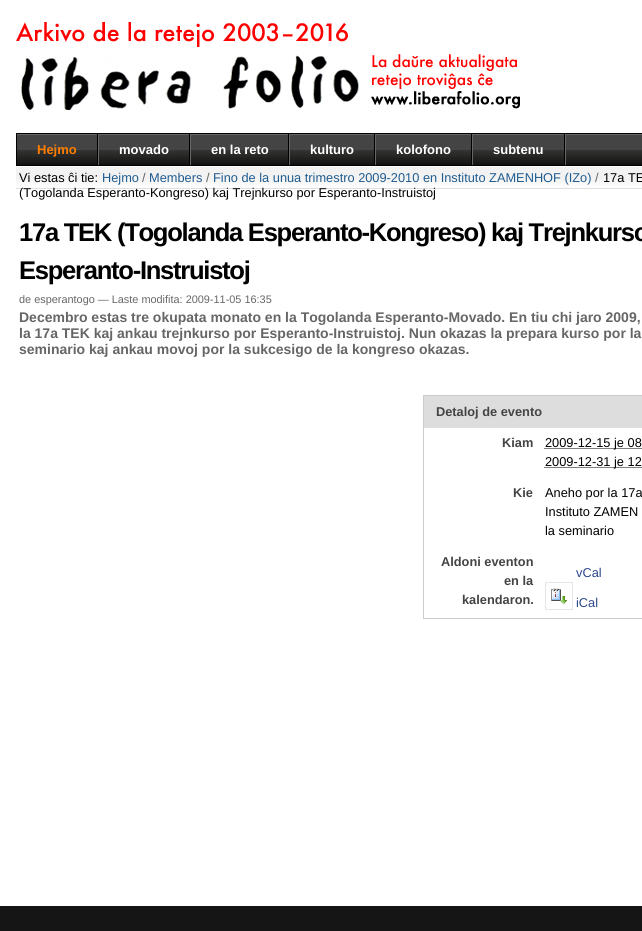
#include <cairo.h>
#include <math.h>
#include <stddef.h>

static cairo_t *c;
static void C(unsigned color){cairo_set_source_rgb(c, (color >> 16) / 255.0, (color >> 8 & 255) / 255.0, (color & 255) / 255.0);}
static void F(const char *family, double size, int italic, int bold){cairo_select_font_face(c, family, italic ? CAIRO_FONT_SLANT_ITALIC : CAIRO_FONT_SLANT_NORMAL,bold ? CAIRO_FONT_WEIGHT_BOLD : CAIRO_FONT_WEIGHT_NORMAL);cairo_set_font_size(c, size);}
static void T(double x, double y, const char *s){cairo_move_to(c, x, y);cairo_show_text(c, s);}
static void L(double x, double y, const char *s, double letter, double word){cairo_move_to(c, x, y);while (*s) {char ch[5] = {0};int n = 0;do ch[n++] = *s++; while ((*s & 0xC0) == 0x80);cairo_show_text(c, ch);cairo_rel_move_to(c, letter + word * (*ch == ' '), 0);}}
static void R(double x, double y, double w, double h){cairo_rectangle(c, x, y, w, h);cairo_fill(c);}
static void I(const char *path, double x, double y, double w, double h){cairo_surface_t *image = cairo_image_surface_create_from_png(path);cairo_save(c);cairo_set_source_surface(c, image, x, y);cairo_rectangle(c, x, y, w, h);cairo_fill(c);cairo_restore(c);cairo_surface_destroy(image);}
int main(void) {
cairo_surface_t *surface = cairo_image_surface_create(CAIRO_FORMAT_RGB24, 642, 931);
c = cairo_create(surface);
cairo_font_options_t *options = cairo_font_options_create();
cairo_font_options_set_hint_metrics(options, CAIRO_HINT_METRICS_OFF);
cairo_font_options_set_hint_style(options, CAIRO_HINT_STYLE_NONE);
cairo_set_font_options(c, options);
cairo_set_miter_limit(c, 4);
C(0xffffff);
cairo_paint(c);
I("1.png",16,167,626,22);
I("2.png",16,22,504,88);
I("3.png",17,134,625,31);
cairo_rectangle(c,16.5,133.5,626,32);
C(0x000000);
cairo_set_line_width(c,1);
cairo_stroke(c);
C(0x666666);
R(98,134,1,31);
C(0x000000);
R(97,134,1,31);
F("Liberation Sans",13,0,1);
C(0xff7e00);
T(37,154,"Hejmo");
C(0x666666);
R(190,134,1,31);
C(0x000000);
R(189,134,1,31);
C(0xffffff);
T(119,154,"movado");
C(0x666666);
R(289,134,1,31);
C(0x000000);
R(288,134,1,31);
C(0xffffff);
T(211,154,"en la reto");
C(0x666666);
R(375,134,1,31);
C(0x000000);
R(374,134,1,31);
C(0xffffff);
T(310,154,"kulturo");
C(0x666666);
R(472,134,1,31);
C(0x000000);
R(471,134,1,31);
C(0xffffff);
T(396,154,"kolofono");
C(0x666666);
R(565,134,1,31);
C(0x000000);
R(564,134,1,31);
C(0xffffff);
T(493,154,"subtenu");
F("Liberation Sans",12.8,0,0);
C(0x000000);
T(19,182,"Vi estas ĉi tie:");
C(0x205c90);
T(102,182,"Hejmo");
C(0x666666);
T(142,182,"/");
C(0x205c90);
T(149,182,"Members");
C(0x666666);
T(206,182,"/");
C(0x205c90);
T(213,182,"Fino de la unua trimestro 2009-2010 en Instituto ZAMENHOF (IZo)");
C(0x666666);
T(595,182,"/");
C(0x000000);
T(603,182,"17a TE");
T(19,197,"(Togolanda Esperanto-Kongreso) kaj Trejnkurso por Esperanto-Instruistoj");
F("Liberation Sans",25.6,0,1);
L(19,241,"17a TEK (Togolanda Esperanto-Kongreso) kaj Trejnkurso",-1.28,0);
L(19,279,"Esperanto-Instruistoj",-1.28,0);
F("Liberation Sans",10.9,0,0);
C(0x666666);
T(19,303,"de esperantogo — Laste modifita: 2009-11-05 16:35");
F("Liberation Sans",14,0,1);
T(19,322,"Decembro estas tre okupata monato en la Togolanda Esperanto-Movado. En tiu chi jaro 2009,");
T(19,338,"la 17a TEK kaj ankau trejnkurso por Esperanto-Instruistoj. Nun okazas la prepara kurso por la");
T(19,354,"seminario kaj ankau movoj por la sukcesigo de la kongreso okazas.");
cairo_rectangle(c,423.5,395.5,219,223);
C(0xcccccc);
cairo_stroke(c);
C(0xdddddd);
R(424,396,218,32);
F("Liberation Sans",12.8,0,1);
C(0x444444);
T(436,416,"Detaloj de evento");
T(502,447,"Kiam");
cairo_new_path(c);
cairo_move_to(c,544.5,448.5);
cairo_line_to(c,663,448.5);
C(0x000000);
cairo_set_dash(c,(double[]){1,1},2,0);
cairo_stroke(c);
F("Liberation Sans",12.8,0,0);
T(545,447,"2009-12-15 je 08");
cairo_new_path(c);
cairo_move_to(c,544.5,467.5);
cairo_line_to(c,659,467.5);
cairo_stroke(c);
T(545,466,"2009-12-31 je 12");
F("Liberation Sans",12.8,0,1);
C(0x444444);
T(513,497,"Kie");
F("Liberation Sans",12.8,0,0);
C(0x000000);
T(545,497,"Aneho por la 17a");
T(545,516,"Instituto ZAMEN");
T(545,535,"la seminario");
F("Liberation Sans",12.8,0,1);
C(0x444444);
T(441,566,"Aldoni eventon");
T(504,585,"en la");
T(462,604,"kalendaron.");
F("Liberation Sans",12.8,0,0);
C(0x2b468a);
T(576,577,"vCal");
cairo_rectangle(c,545.5,582.5,27,27);
C(0xe5e5e5);
cairo_set_dash(c,NULL,0,0);
cairo_stroke(c);
I("4.png",551,588,16,16);
C(0x2b468a);
T(576,607,"iCal");
C(0x151515);
R(0,906,642,25);
cairo_surface_write_to_png(surface, "o.png");
cairo_font_options_destroy(options);
cairo_destroy(c);
cairo_surface_destroy(surface);
return 0;
}
